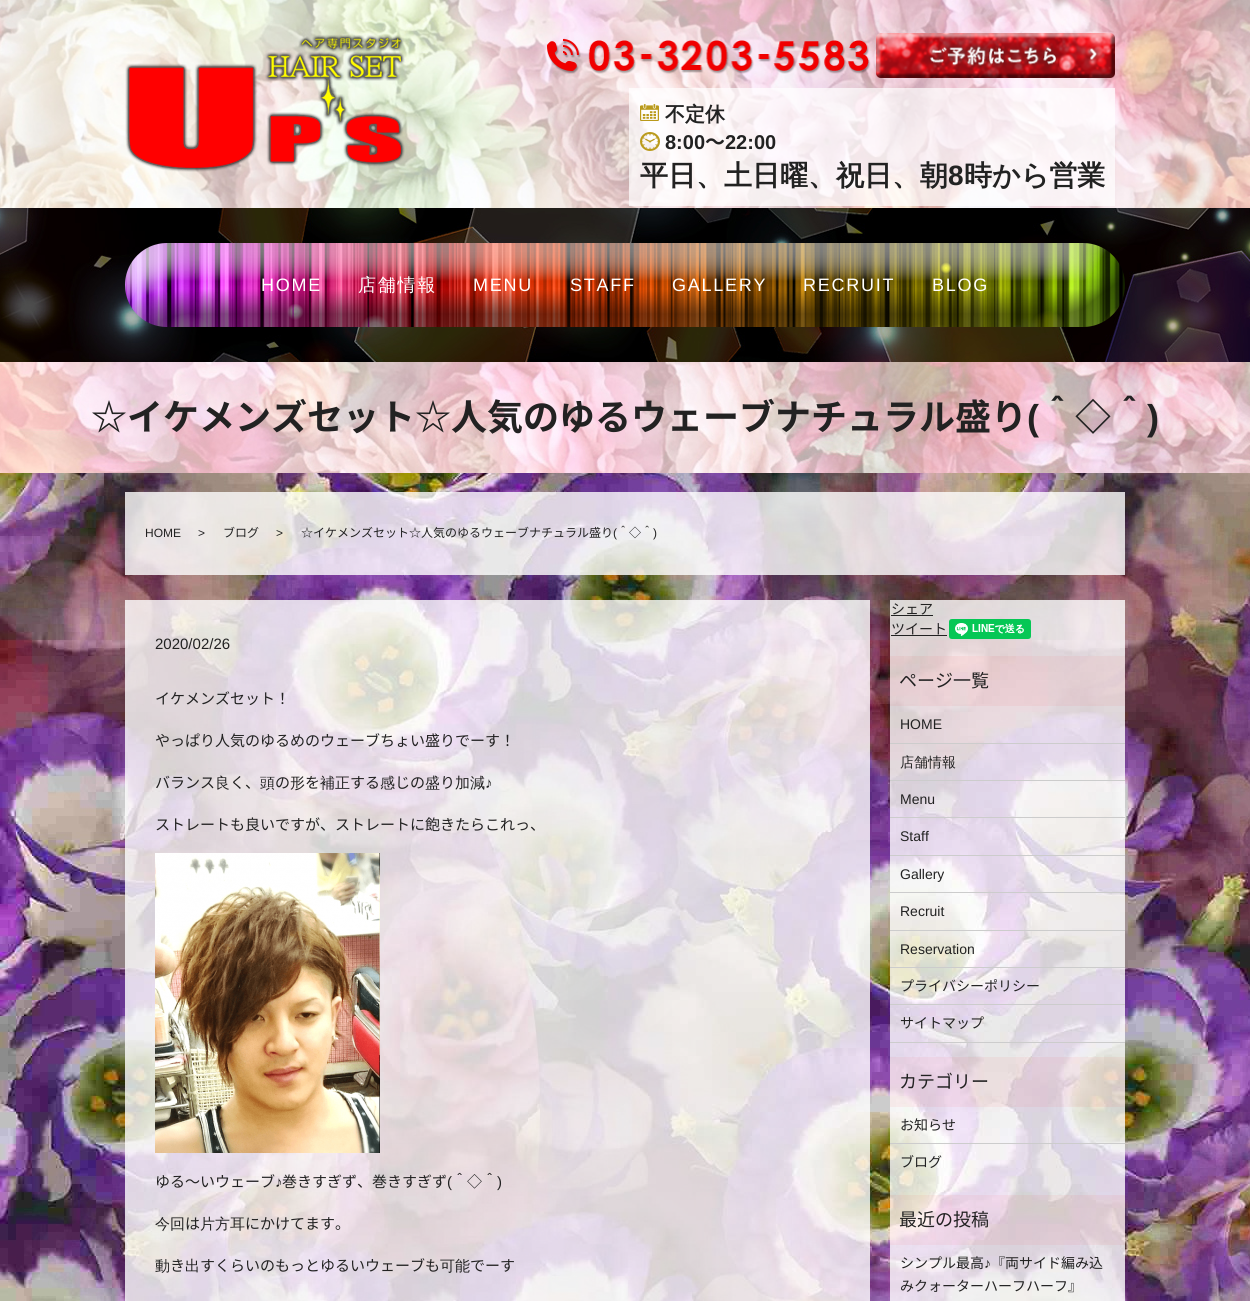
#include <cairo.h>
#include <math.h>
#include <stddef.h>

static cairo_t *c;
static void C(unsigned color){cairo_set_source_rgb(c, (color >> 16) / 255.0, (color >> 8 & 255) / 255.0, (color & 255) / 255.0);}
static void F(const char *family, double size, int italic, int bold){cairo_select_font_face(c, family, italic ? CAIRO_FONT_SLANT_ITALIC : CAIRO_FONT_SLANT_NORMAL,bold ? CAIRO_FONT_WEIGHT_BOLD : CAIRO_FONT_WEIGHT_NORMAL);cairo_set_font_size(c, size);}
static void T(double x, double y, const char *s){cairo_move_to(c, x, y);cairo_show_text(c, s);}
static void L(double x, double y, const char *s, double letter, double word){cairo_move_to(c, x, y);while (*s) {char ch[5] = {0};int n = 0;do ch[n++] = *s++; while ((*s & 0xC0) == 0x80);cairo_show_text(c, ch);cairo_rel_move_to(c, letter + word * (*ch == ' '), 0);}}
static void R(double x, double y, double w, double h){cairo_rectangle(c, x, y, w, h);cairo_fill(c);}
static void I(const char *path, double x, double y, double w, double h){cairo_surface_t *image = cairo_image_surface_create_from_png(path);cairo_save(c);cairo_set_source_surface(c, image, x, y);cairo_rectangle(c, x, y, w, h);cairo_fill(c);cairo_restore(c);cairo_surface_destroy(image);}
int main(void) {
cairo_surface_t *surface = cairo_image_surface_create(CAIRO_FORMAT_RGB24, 1250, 1301);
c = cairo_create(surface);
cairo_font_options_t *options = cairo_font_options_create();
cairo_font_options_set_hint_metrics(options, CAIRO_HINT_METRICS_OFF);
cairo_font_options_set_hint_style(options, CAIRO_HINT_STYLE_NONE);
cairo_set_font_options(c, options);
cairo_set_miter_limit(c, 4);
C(0xffffff);
cairo_paint(c);
I("1.png",0,473,1250,828);
I("2.png",0,0,1250,208);
I("3.png",125,34,280,138);
I("4.png",547,39,324,35);
I("5.png",876,33,239,45);
cairo_set_source_rgba(c,1,1,1,0.7);
R(629,88,486,118);
I("6.png",640,104,19,17);
F("WenQuanYi Zen Hei",20,0,1);
C(0x222222);
T(665,121,"不定休");
I("7.png",640,132,20,19);
F("Liberation Sans",20,0,1);
T(665,149,"8:00");
F("Noto Sans JP",20,0,1);
T(705,149,"～");
F("Liberation Sans",20,0,1);
T(725,149,"22:00");
F("WenQuanYi Zen Hei",28,0,1);
T(640,185,"平日、土日曜、祝日、朝");
F("Liberation Sans",28,0,1);
T(948,185,"8");
F("WenQuanYi Zen Hei",28,0,1);
T(964,185,"時から営業");
I("8.png",0,208,1250,154);
I("9.png",125,243,1000,84);
F("Liberation Sans",18,0,0);
C(0xffffff);
L(261,291,"HOME",1.75,0);
F("WenQuanYi Zen Hei Medium",18,0,0);
L(358,291,"店舗情報",1.75,0);
F("Liberation Sans",18,0,0);
L(473,291,"MENU",1.75,0);
L(570,291,"STAFF",1.75,0);
L(672,291,"GALLERY",1.75,0);
L(803,291,"RECRUIT",1.75,0);
L(932,291,"BLOG",1.75,0);
I("10.png",0,362,1250,111);
F("Noto Sans JP",36,0,1);
C(0x222222);
T(91,430,"☆イケメンズセット☆人気のゆるウェーブナチュラル盛り");
F("Liberation Sans",36,0,1);
T(1027,430,"(");
F("Noto Sans JP",36,0,1);
T(1039,430,"＾◇＾");
F("Liberation Sans",36,0,1);
T(1147,430,")");
cairo_set_source_rgba(c,1,1,1,0.8);
R(125,492,1000,83);
F("Liberation Sans",12,0,0);
C(0x222222);
T(145,537,"HOME");
T(198,537,">");
F("Noto Sans JP",12,0,0);
T(223,537,"ブログ");
F("Liberation Sans",12,0,0);
T(276,537,">");
F("Noto Sans JP",12,0,0);
T(301,537,"☆イケメンズセット☆人気のゆるウェーブナチュラル盛り");
F("Liberation Sans",12,0,0);
T(613,537,"(");
F("Noto Sans JP",12,0,0);
T(617,537,"＾◇＾");
F("Liberation Sans",12,0,0);
T(653,537,")");
cairo_set_source_rgba(c,1,1,1,0.8);
R(125,600,745,701);
F("Liberation Sans",15,0,0);
C(0x222222);
T(155,649,"2020/02/26");
F("Noto Sans JP",15,0,0);
T(155,704,"イケメンズセット！");
T(155,746,"やっぱり人気のゆるめのウェーブちょい盛りでーす！");
T(155,788,"バランス");
F("WenQuanYi Zen Hei Medium",15,0,0);
T(215,788,"良");
F("Noto Sans JP",15,0,0);
T(230,788,"く、");
F("WenQuanYi Zen Hei Medium",15,0,0);
T(260,788,"頭");
F("Noto Sans JP",15,0,0);
T(275,788,"の");
F("WenQuanYi Zen Hei Medium",15,0,0);
T(290,788,"形");
F("Noto Sans JP",15,0,0);
T(305,788,"を");
F("WenQuanYi Zen Hei Medium",15,0,0);
T(320,788,"補正");
F("Noto Sans JP",15,0,0);
T(350,788,"する");
F("WenQuanYi Zen Hei Medium",15,0,0);
T(380,788,"感");
F("Noto Sans JP",15,0,0);
T(395,788,"じの");
F("WenQuanYi Zen Hei Medium",15,0,0);
T(425,788,"盛");
F("Noto Sans JP",15,0,0);
T(440,788,"り");
F("WenQuanYi Zen Hei Medium",15,0,0);
T(455,788,"加減");
F("Liberation Sans",15,0,0);
T(485,788,"♪");
F("Noto Sans JP",15,0,0);
T(155,830,"ストレートも良いですが、ストレートに飽きたらこれっ、");
I("11.png",155,853,225,300);
T(155,1187,"ゆる～いウェーブ");
F("Liberation Sans",15,0,0);
T(275,1187,"♪");
F("Noto Sans JP",15,0,0);
T(282,1187,"巻きすぎず、巻きすぎず");
F("Liberation Sans",15,0,0);
T(447,1187,"(");
F("Noto Sans JP",15,0,0);
T(452,1187,"＾◇＾");
F("Liberation Sans",15,0,0);
T(497,1187,")");
F("WenQuanYi Zen Hei Medium",15,0,0);
T(155,1229,"今回");
F("Noto Sans JP",15,0,0);
T(185,1229,"は");
F("WenQuanYi Zen Hei Medium",15,0,0);
T(200,1229,"片方耳");
F("Noto Sans JP",15,0,0);
T(245,1229,"にかけてます。");
F("WenQuanYi Zen Hei Medium",15,0,0);
T(155,1271,"動");
F("Noto Sans JP",15,0,0);
T(170,1271,"き");
F("WenQuanYi Zen Hei Medium",15,0,0);
T(185,1271,"出");
F("Noto Sans JP",15,0,0);
T(200,1271,"すくらいのもっとゆるいウェーブも");
F("WenQuanYi Zen Hei Medium",15,0,0);
T(440,1271,"可能");
F("Noto Sans JP",15,0,0);
T(470,1271,"でーす");
cairo_set_source_rgba(c,1,1,1,0.8);
R(890,600,235,701);
F("Noto Sans JP",14,0,0);
C(0x222222);
T(891,614,"シェア");
R(891,615,42,1);
T(891,634,"ツイート");
R(891,635,56,1);
I("12.png",949,619,82,20);
cairo_set_source_rgba(c,0.941,0,0,0.05);
R(890,656,235,50);
F("Noto Sans JP",18,0,0);
C(0x222222);
T(899,687,"ページ一覧");
C(0xcccccc);
R(890,743,235,1);
F("Liberation Sans",14,0,0);
C(0x222222);
T(900,729,"HOME");
C(0xcccccc);
R(890,780,235,1);
F("WenQuanYi Zen Hei Medium",14,0,0);
C(0x222222);
T(900,767,"店舗情報");
C(0xcccccc);
R(890,817,235,1);
F("Liberation Sans",14,0,0);
C(0x222222);
T(900,804,"Menu");
C(0xcccccc);
R(890,855,235,1);
C(0x222222);
T(900,841,"Staff");
C(0xcccccc);
R(890,892,235,1);
C(0x222222);
T(900,879,"Gallery");
C(0xcccccc);
R(890,930,235,1);
C(0x222222);
T(900,916,"Recruit");
C(0xcccccc);
R(890,967,235,1);
C(0x222222);
T(900,954,"Reservation");
C(0xcccccc);
R(890,1004,235,1);
F("Noto Sans JP",14,0,0);
C(0x222222);
T(900,991,"プライバシーポリシー");
C(0xcccccc);
R(890,1042,235,1);
C(0x222222);
T(900,1028,"サイトマップ");
cairo_set_source_rgba(c,0.941,0,0,0.05);
R(890,1057,235,50);
F("Noto Sans JP",18,0,0);
C(0x222222);
T(899,1088,"カテゴリー");
C(0xcccccc);
R(890,1143,235,1);
F("Noto Sans JP",14,0,0);
C(0x222222);
T(900,1130,"お知らせ");
T(900,1167,"ブログ");
cairo_set_source_rgba(c,0.941,0,0,0.05);
R(890,1195,235,50);
F("Noto Sans JP",18,0,0);
C(0x222222);
T(899,1226,"最近の投稿");
F("Noto Sans JP",14,0,0);
T(900,1268,"シンプル最高");
F("Liberation Sans",14,0,0);
T(984,1268,"♪");
F("Noto Sans JP",14,0,0);
T(991,1268,"『両サイド編み込");
T(900,1291,"みクォーターハーフハーフ』");
cairo_surface_write_to_png(surface, "o.png");
cairo_font_options_destroy(options);
cairo_destroy(c);
cairo_surface_destroy(surface);
return 0;
}
